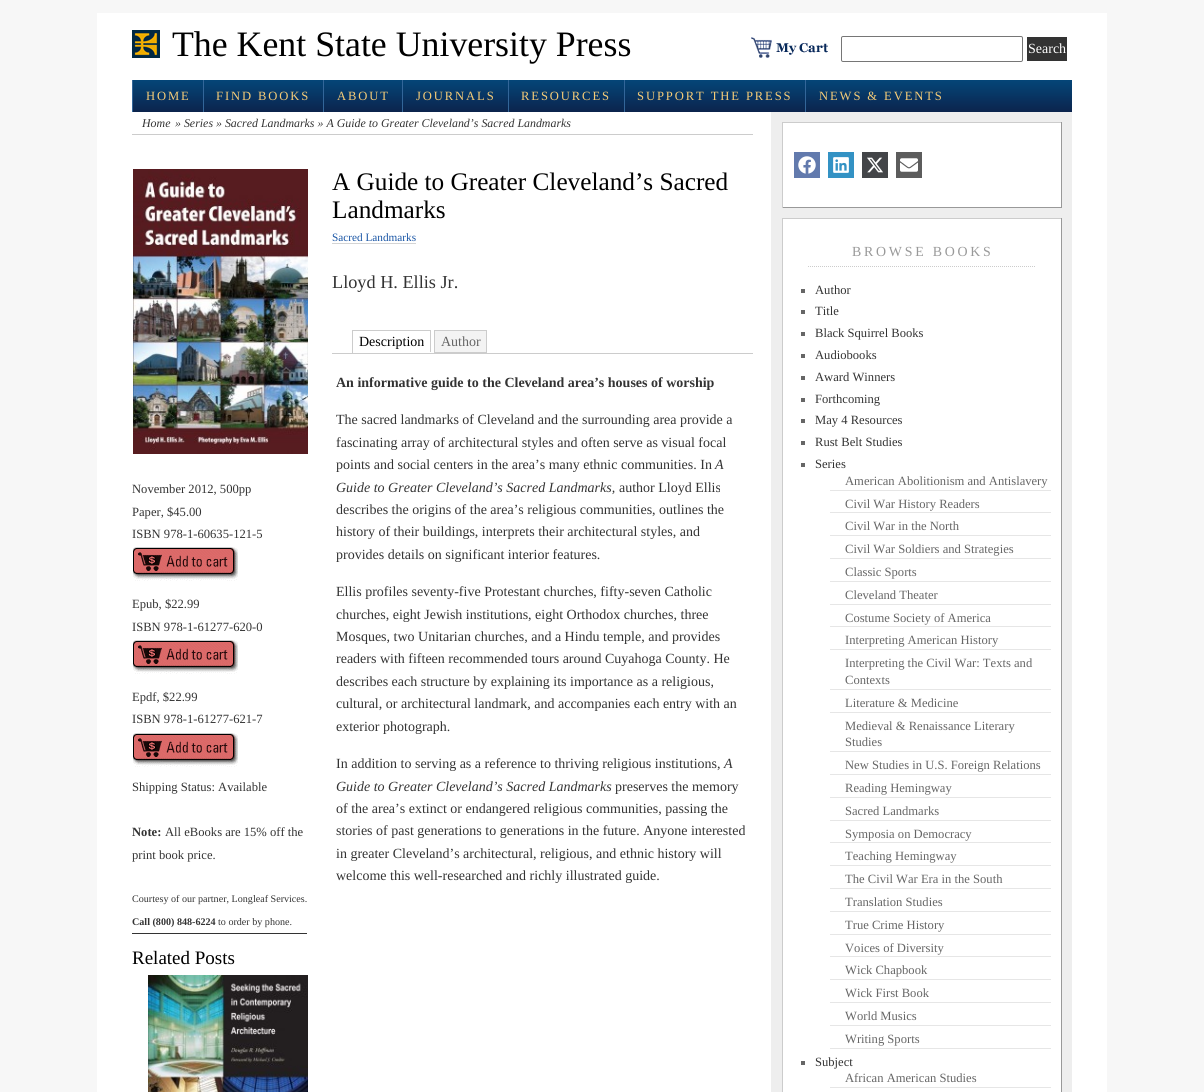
#include <cairo.h>
#include <math.h>
#include <stddef.h>

static cairo_t *c;
static void C(unsigned color){cairo_set_source_rgb(c, (color >> 16) / 255.0, (color >> 8 & 255) / 255.0, (color & 255) / 255.0);}
static void F(const char *family, double size, int italic, int bold){cairo_select_font_face(c, family, italic ? CAIRO_FONT_SLANT_ITALIC : CAIRO_FONT_SLANT_NORMAL,bold ? CAIRO_FONT_WEIGHT_BOLD : CAIRO_FONT_WEIGHT_NORMAL);cairo_set_font_size(c, size);}
static void T(double x, double y, const char *s){cairo_move_to(c, x, y);cairo_show_text(c, s);}
static void L(double x, double y, const char *s, double letter, double word){cairo_move_to(c, x, y);while (*s) {char ch[5] = {0};int n = 0;do ch[n++] = *s++; while ((*s & 0xC0) == 0x80);cairo_show_text(c, ch);cairo_rel_move_to(c, letter + word * (*ch == ' '), 0);}}
static void R(double x, double y, double w, double h){cairo_rectangle(c, x, y, w, h);cairo_fill(c);}
static void Q(double x, double y, double w, double h, double r){cairo_new_sub_path(c);cairo_arc(c, x + w - r, y + h - r, r, 0, M_PI / 2);cairo_arc(c, x + r, y + h - r, r, M_PI / 2, M_PI);cairo_arc(c, x + r, y + r, r, M_PI, 1.5 * M_PI);cairo_arc(c, x + w - r, y + r, r, 1.5 * M_PI, 2 * M_PI);cairo_close_path(c);}
static void I(const char *path, double x, double y, double w, double h){cairo_surface_t *image = cairo_image_surface_create_from_png(path);cairo_save(c);cairo_set_source_surface(c, image, x, y);cairo_rectangle(c, x, y, w, h);cairo_fill(c);cairo_restore(c);cairo_surface_destroy(image);}
int main(void) {
cairo_surface_t *surface = cairo_image_surface_create(CAIRO_FORMAT_RGB24, 1204, 1092);
c = cairo_create(surface);
cairo_font_options_t *options = cairo_font_options_create();
cairo_font_options_set_hint_metrics(options, CAIRO_HINT_METRICS_OFF);
cairo_font_options_set_hint_style(options, CAIRO_HINT_STYLE_NONE);
cairo_set_font_options(c, options);
cairo_set_miter_limit(c, 4);
C(0xf7f7f7);
cairo_paint(c);
C(0xffffff);
R(97,13,1010,1079);
C(0xeeeeee);
R(771,112,301,980);
I("1.png",132,30,28,28);
F("Liberation Serif",35.8,0,0);
C(0x000000);
T(172,56,"The Kent State University Press");
I("2.png",751,37,77,21);
Q(841.5,36.5,181,25,1.5);
C(0x767676);
cairo_set_line_width(c,1);
cairo_stroke(c);
C(0x333333);
R(1027,37,40,24);
F("Liberation Serif",14,0,0);
C(0xffffff);
T(1028,53,"Search");
I("3.png",133,80,939,32);
C(0x336699);
R(132,80,1,32);
F("Liberation Serif",12.6,0,0);
C(0xf5cc78);
L(146,100,"HOME",1.9,0);
C(0x336699);
R(203,80,1,32);
C(0xf5cc78);
L(216,100,"FIND BOOKS",1.9,0);
C(0x336699);
R(323,80,1,32);
C(0xf5cc78);
L(337,100,"ABOUT",1.9,0);
C(0x336699);
R(402,80,1,32);
C(0xf5cc78);
L(416,100,"JOURNALS",1.9,0);
C(0x336699);
R(508,80,1,32);
C(0xf5cc78);
L(521,100,"RESOURCES",1.9,0);
C(0x336699);
R(624,80,1,32);
C(0xf5cc78);
L(637,100,"SUPPORT THE PRESS",1.9,0);
C(0x336699);
R(805,80,1,32);
C(0xf5cc78);
L(819,100,"NEWS & EVENTS",1.9,0);
C(0xcccccc);
R(132,134,621,1);
F("Liberation Serif",11.9,1,0);
C(0x333333);
T(142,127,"Home");
T(175,127,"» Series » Sacred Landmarks » A Guide to Greater Cleveland’s Sacred Landmarks");
I("4.png",133,169,175,285);
F("Liberation Serif",12.6,0,0);
T(132,493,"November 2012, 500pp");
T(132,516,"Paper, $45.00");
T(132,538,"ISBN 978-1-60635-121-5");
I("5.png",133,547,105,34);
T(132,608,"Epub, $22.99");
T(132,631,"ISBN 978-1-61277-620-0");
I("5.png",133,640,105,34);
T(132,701,"Epdf, $22.99");
T(132,723,"ISBN 978-1-61277-621-7");
I("5.png",133,733,105,34);
T(132,791,"Shipping Status: Available");
F("Liberation Serif",12.6,0,1);
T(132,836,"Note:");
F("Liberation Serif",12.6,0,0);
T(165,836,"All eBooks are 15% off the");
T(132,859,"print book price.");
F("Liberation Serif",10.1,0,0);
T(132,902,"Courtesy of our partner, Longleaf Services.");
F("Liberation Serif",10.1,0,1);
T(132,925,"Call (800) 848-6224");
F("Liberation Serif",10.1,0,0);
T(218,925,"to order by phone.");
R(132,933,175,1);
F("Liberation Serif",19,0,0);
C(0x000000);
T(132,964,"Related Posts");
I("6.png",148,975,160,117);
F("Liberation Serif",25.25,0,0);
T(332,190,"A Guide to Greater Cleveland’s Sacred");
T(332,218,"Landmarks");
F("Liberation Serif",11.25,0,0);
C(0x1955a5);
T(332,241,"Sacred Landmarks");
C(0xd4d4d4);
R(332,243,84,1);
F("Liberation Serif",18.25,0,0);
C(0x333333);
T(332,288,"Lloyd H. Ellis Jr.");
C(0xcccccc);
R(332,353,421,1);
F("Liberation Serif",14,0,0);
C(0x000000);
T(359,346,"Description");
C(0xcccccc);
R(352,330,79,1);
R(430,330,1,23);
C(0xffffff);
R(430,352,1,1);
C(0xcccccc);
R(352,330,1,23);
C(0xf3f3f3);
cairo_rectangle(c,434.5,330.5,52,22);
cairo_fill_preserve(c);
C(0xcccccc);
cairo_stroke(c);
C(0x666666);
T(441,346,"Author");
F("Liberation Serif",14,0,1);
C(0x333333);
T(336,387,"An informative guide to the Cleveland area’s houses of worship");
F("Liberation Serif",14,0,0);
T(336,424,"The sacred landmarks of Cleveland and the surrounding area provide a");
T(336,447,"fascinating array of architectural styles and often serve as visual focal");
T(336,469,"points and social centers in the area’s many ethnic communities. In");
F("Liberation Serif",14,1,0);
T(715,469,"A");
T(336,492,"Guide to Greater Cleveland’s Sacred Landmarks,");
F("Liberation Serif",14,0,0);
T(619,492,"author Lloyd Ellis");
T(336,514,"describes the origins of the area’s religious communities, outlines the");
T(336,536,"history of their buildings, interprets their architectural styles, and");
T(336,559,"provides details on significant interior features.");
T(336,596,"Ellis profiles seventy-five Protestant churches, fifty-seven Catholic");
T(336,619,"churches, eight Jewish institutions, eight Orthodox churches, three");
T(336,641,"Mosques, two Unitarian churches, and a Hindu temple, and provides");
T(336,663,"readers with fifteen recommended tours around Cuyahoga County. He");
T(336,686,"describes each structure by explaining its importance as a religious,");
T(336,708,"cultural, or architectural landmark, and accompanies each entry with an");
T(336,731,"exterior photograph.");
T(336,768,"In addition to serving as a reference to thriving religious institutions,");
F("Liberation Serif",14,1,0);
T(724,768,"A");
T(336,791,"Guide to Greater Cleveland’s Sacred Landmarks");
F("Liberation Serif",14,0,0);
T(615,791,"preserves the memory");
T(336,813,"of the area’s extinct or endangered religious communities, passing the");
T(336,835,"stories of past generations to generations in the future. Anyone interested");
T(336,858,"in greater Cleveland’s architectural, religious, and ethnic history will");
T(336,880,"welcome this well-researched and richly illustrated guide.");
C(0xffffff);
R(783,123,278,84);
C(0xcccccc);
R(782,122,280,1);
C(0x999999);
R(1061,122,1,86);
R(782,207,280,1);
C(0xcccccc);
R(782,122,1,86);
C(0x627aad);
R(794,152,26,26);
I("7.png",798,156,18,18);
C(0x3392c4);
R(828,152,26,26);
I("8.png",833,157,16,16);
C(0x434548);
R(862,152,26,26);
I("9.png",867,157,16,16);
C(0x5c5c5c);
R(896,152,26,26);
I("10.png",900,158,18,14);
C(0xffffff);
R(783,219,278,873);
C(0xcccccc);
R(782,218,280,1);
C(0x999999);
R(1061,218,1,874);
C(0xcccccc);
R(782,218,1,874);
cairo_new_path(c);
cairo_move_to(c,808,266.5);
cairo_line_to(c,1036,266.5);
cairo_set_dash(c,(double[]){1,1},2,0);
cairo_stroke(c);
F("Liberation Serif",13.9,0,0);
C(0x999999);
L(852,256,"BROWSE BOOKS",2.75,0);
C(0x666666);
R(801,289,4,4);
F("Liberation Serif",12.6,0,0);
C(0x333333);
T(815,294,"Author");
C(0x666666);
R(801,310,4,4);
C(0x333333);
T(815,315,"Title");
C(0x666666);
R(801,332,4,4);
C(0x333333);
T(815,337,"Black Squirrel Books");
C(0x666666);
R(801,354,4,4);
C(0x333333);
T(815,359,"Audiobooks");
C(0x666666);
R(801,376,4,4);
C(0x333333);
T(815,381,"Award Winners");
C(0x666666);
R(801,398,4,4);
C(0x333333);
T(815,403,"Forthcoming");
C(0x666666);
R(801,419,4,4);
C(0x333333);
T(815,424,"May 4 Resources");
C(0x666666);
R(801,441,4,4);
C(0x333333);
T(815,446,"Rust Belt Studies");
C(0x666666);
R(801,463,4,4);
C(0x333333);
T(815,468,"Series");
C(0xe6e6e6);
R(830,490,221,1);
C(0x666666);
T(845,485,"American Abolitionism and Antislavery");
C(0xe6e6e6);
R(830,512,221,1);
C(0x666666);
T(845,508,"Civil War History Readers");
C(0xe6e6e6);
R(830,535,221,1);
C(0x666666);
T(845,530,"Civil War in the North");
C(0xe6e6e6);
R(830,558,221,1);
C(0x666666);
T(845,553,"Civil War Soldiers and Strategies");
C(0xe6e6e6);
R(830,581,221,1);
C(0x666666);
T(845,576,"Classic Sports");
C(0xe6e6e6);
R(830,604,221,1);
C(0x666666);
T(845,599,"Cleveland Theater");
C(0xe6e6e6);
R(830,626,221,1);
C(0x666666);
T(845,622,"Costume Society of America");
C(0xe6e6e6);
R(830,649,221,1);
C(0x666666);
T(845,644,"Interpreting American History");
C(0xe6e6e6);
R(830,689,221,1);
C(0x666666);
T(845,667,"Interpreting the Civil War: Texts and");
T(845,684,"Contexts");
C(0xe6e6e6);
R(830,712,221,1);
C(0x666666);
T(845,707,"Literature & Medicine");
C(0xe6e6e6);
R(830,751,221,1);
C(0x666666);
T(845,730,"Medieval & Renaissance Literary");
T(845,746,"Studies");
C(0xe6e6e6);
R(830,774,221,1);
C(0x666666);
T(845,769,"New Studies in U.S. Foreign Relations");
C(0xe6e6e6);
R(830,797,221,1);
C(0x666666);
T(845,792,"Reading Hemingway");
C(0xe6e6e6);
R(830,820,221,1);
C(0x666666);
T(845,815,"Sacred Landmarks");
C(0xe6e6e6);
R(830,842,221,1);
C(0x666666);
T(845,838,"Symposia on Democracy");
C(0xe6e6e6);
R(830,865,221,1);
C(0x666666);
T(845,860,"Teaching Hemingway");
C(0xe6e6e6);
R(830,888,221,1);
C(0x666666);
T(845,883,"The Civil War Era in the South");
C(0xe6e6e6);
R(830,911,221,1);
C(0x666666);
T(845,906,"Translation Studies");
C(0xe6e6e6);
R(830,934,221,1);
C(0x666666);
T(845,929,"True Crime History");
C(0xe6e6e6);
R(830,956,221,1);
C(0x666666);
T(845,952,"Voices of Diversity");
C(0xe6e6e6);
R(830,979,221,1);
C(0x666666);
T(845,974,"Wick Chapbook");
C(0xe6e6e6);
R(830,1002,221,1);
C(0x666666);
T(845,997,"Wick First Book");
C(0xe6e6e6);
R(830,1025,221,1);
C(0x666666);
T(845,1020,"World Musics");
C(0xe6e6e6);
R(830,1048,221,1);
C(0x666666);
T(845,1043,"Writing Sports");
R(801,1061,4,4);
C(0x333333);
T(815,1066,"Subject");
C(0xe6e6e6);
R(830,1087,221,1);
C(0x666666);
T(845,1082,"African American Studies");
cairo_surface_write_to_png(surface, "o.png");
cairo_font_options_destroy(options);
cairo_destroy(c);
cairo_surface_destroy(surface);
return 0;
}
